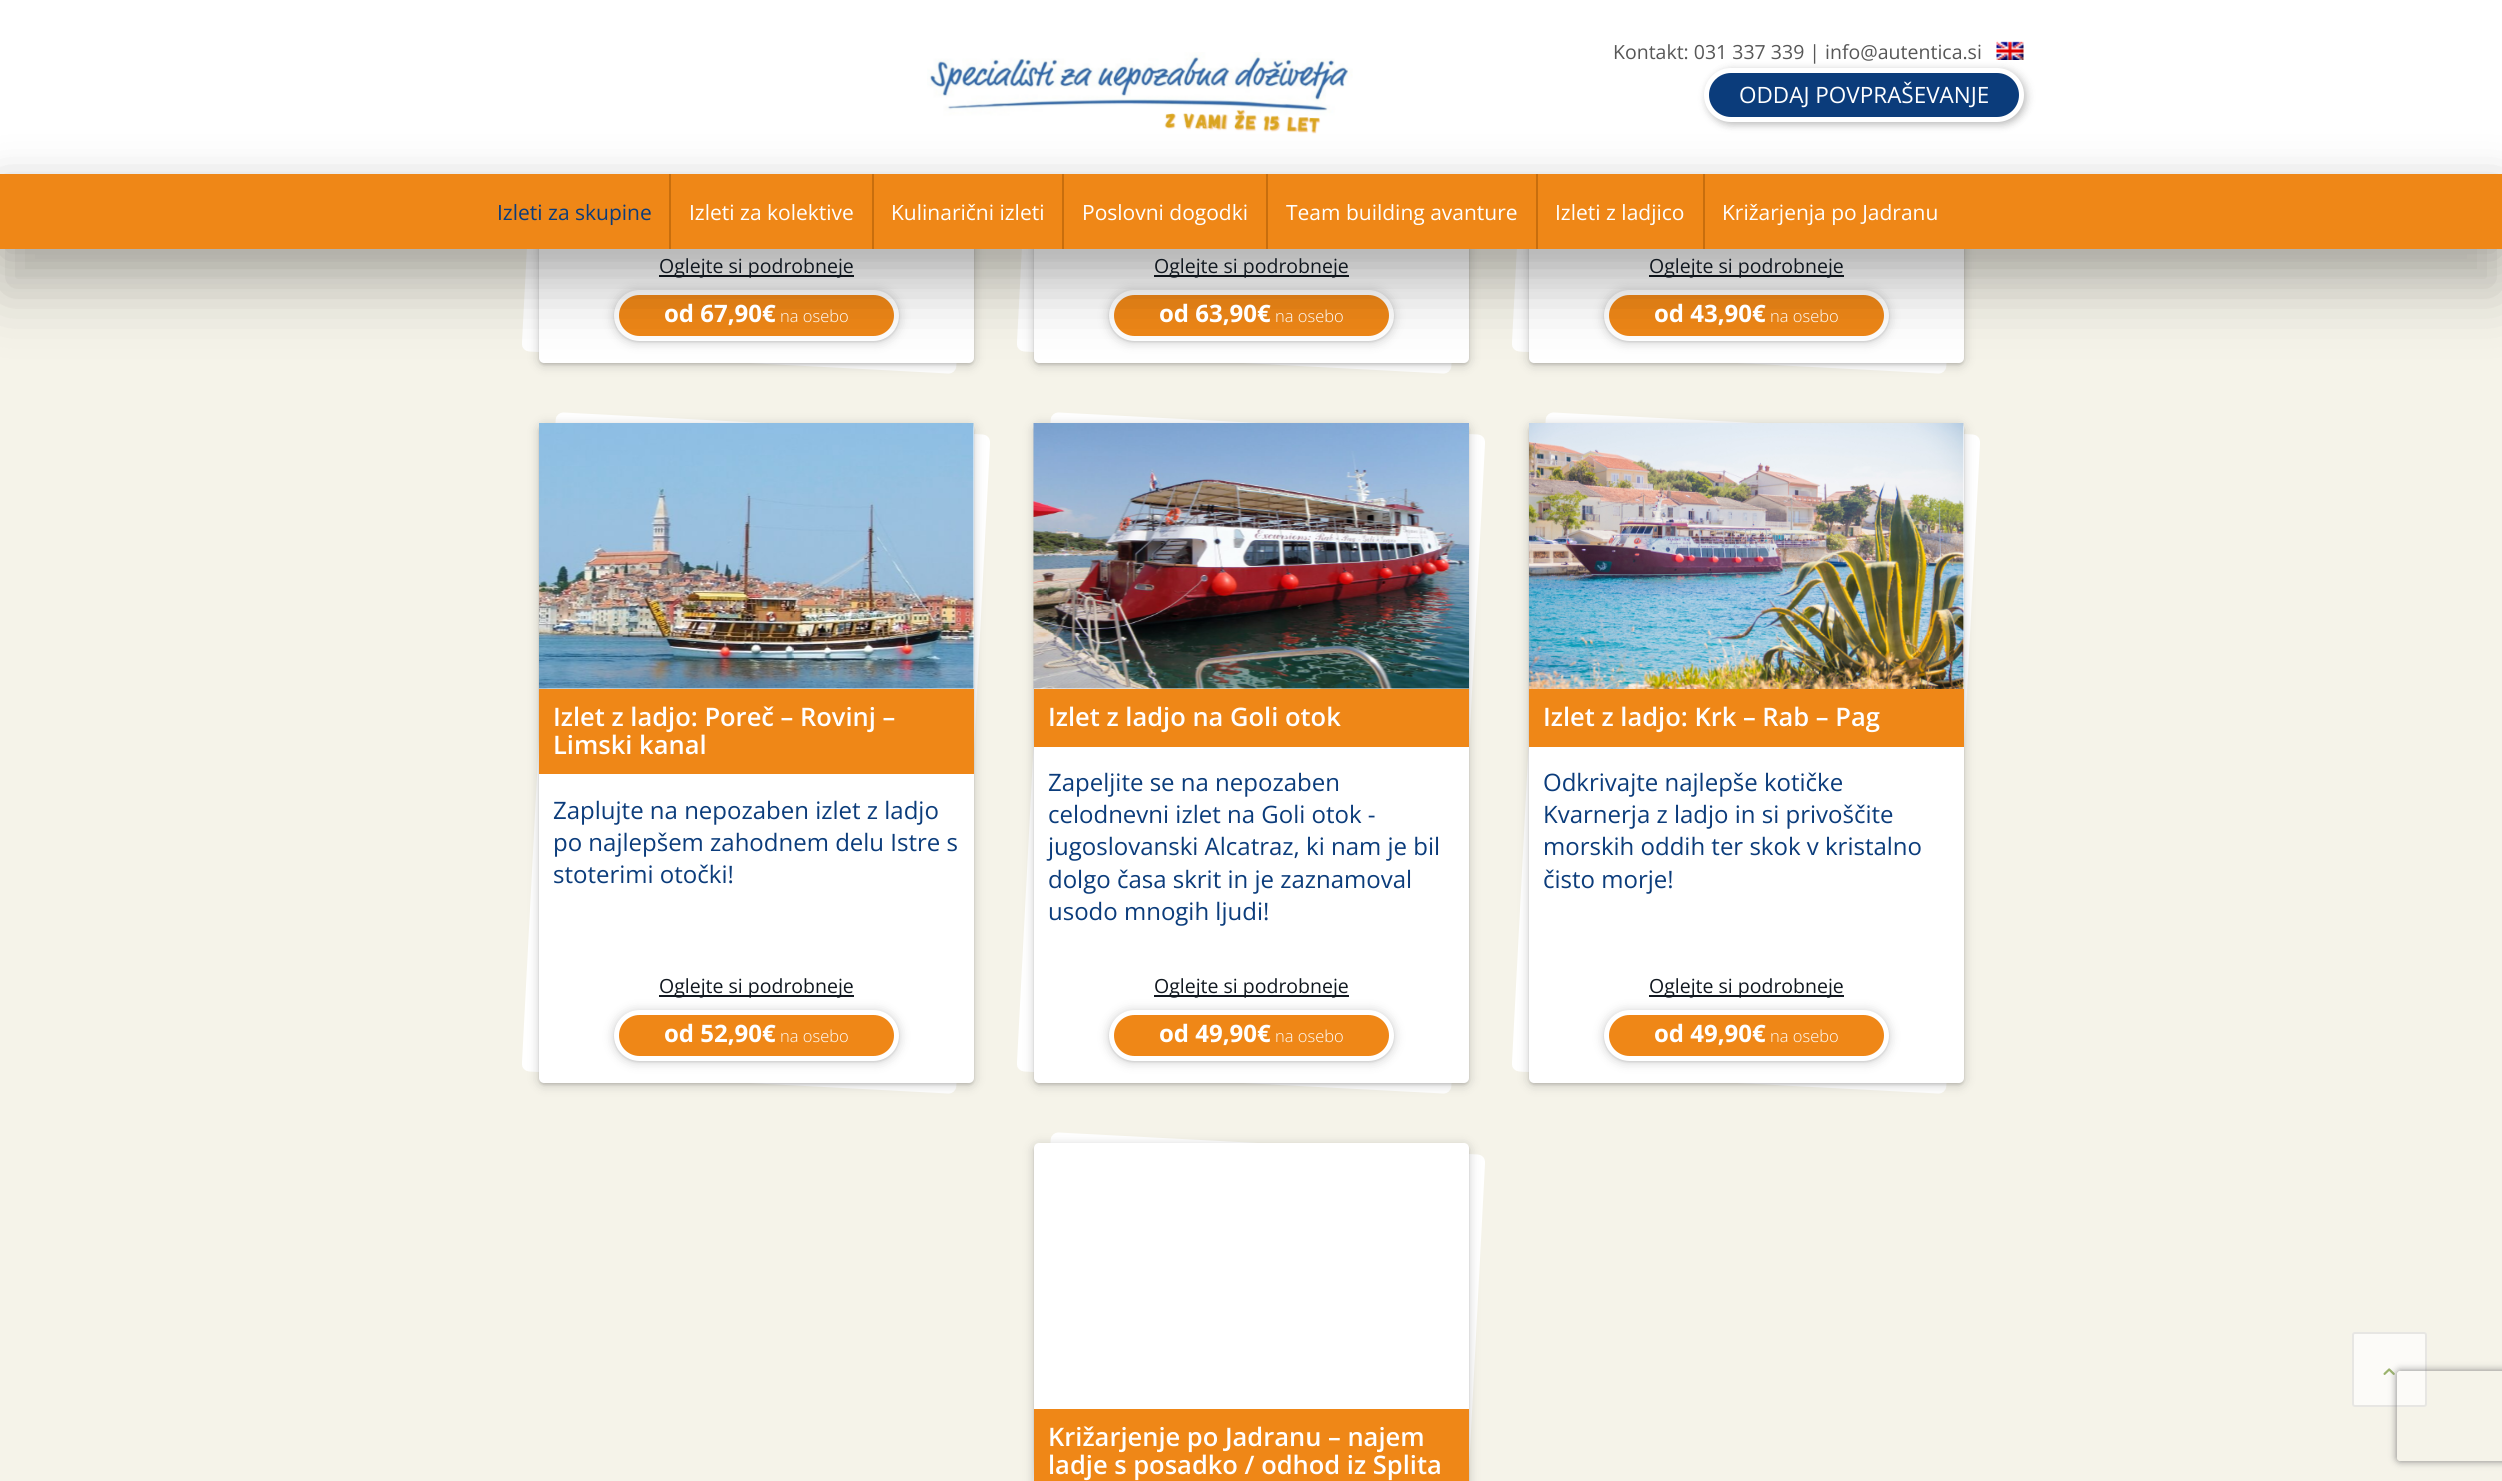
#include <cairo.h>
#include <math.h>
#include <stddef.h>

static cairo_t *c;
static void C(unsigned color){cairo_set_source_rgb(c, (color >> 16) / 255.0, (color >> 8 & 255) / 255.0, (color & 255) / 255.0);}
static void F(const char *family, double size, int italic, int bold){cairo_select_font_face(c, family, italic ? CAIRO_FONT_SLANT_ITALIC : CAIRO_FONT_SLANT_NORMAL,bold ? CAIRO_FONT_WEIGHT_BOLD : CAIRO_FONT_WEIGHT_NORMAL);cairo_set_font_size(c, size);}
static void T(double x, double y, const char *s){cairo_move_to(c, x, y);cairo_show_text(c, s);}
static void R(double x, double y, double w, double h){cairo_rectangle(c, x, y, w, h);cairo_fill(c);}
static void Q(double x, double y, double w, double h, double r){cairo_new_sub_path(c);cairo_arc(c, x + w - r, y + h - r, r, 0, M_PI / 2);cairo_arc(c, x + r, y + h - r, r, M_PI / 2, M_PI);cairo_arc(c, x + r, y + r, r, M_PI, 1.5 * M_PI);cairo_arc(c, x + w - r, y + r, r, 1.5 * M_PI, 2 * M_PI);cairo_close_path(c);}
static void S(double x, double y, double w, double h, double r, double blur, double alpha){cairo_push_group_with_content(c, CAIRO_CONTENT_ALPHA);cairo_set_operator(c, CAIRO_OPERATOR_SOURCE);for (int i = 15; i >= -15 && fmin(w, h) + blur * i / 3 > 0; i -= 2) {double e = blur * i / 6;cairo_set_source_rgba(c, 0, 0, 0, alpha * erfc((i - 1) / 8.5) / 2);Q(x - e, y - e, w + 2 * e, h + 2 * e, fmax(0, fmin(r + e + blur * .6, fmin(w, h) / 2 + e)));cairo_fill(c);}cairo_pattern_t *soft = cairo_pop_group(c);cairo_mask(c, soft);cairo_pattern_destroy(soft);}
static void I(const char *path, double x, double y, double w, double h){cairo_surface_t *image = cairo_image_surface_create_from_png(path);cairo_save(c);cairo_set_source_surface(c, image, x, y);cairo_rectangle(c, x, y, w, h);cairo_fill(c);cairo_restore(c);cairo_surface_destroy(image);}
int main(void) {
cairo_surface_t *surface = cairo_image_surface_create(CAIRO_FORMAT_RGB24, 2502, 1481);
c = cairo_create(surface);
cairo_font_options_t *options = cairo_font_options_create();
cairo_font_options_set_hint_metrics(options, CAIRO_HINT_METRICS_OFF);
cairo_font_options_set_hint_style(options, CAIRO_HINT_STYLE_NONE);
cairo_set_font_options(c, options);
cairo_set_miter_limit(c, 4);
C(0xf5f3e9);
cairo_paint(c);
I("3.png",522,249,435,125);
C(0x000000);
S(539,-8,435,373,5,1,.1);
S(539,-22,435,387,5,5.5,.2);
C(0xffffff);
Q(539,-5,435,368,5);
cairo_fill(c);
I("4.png",1017,249,435,125);
C(0x000000);
S(1034,-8,435,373,5,1,.1);
S(1034,-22,435,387,5,5.5,.2);
C(0xffffff);
Q(1034,-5,435,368,5);
cairo_fill(c);
I("5.png",1512,249,435,125);
C(0x000000);
S(1529,-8,435,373,5,1,.1);
S(1529,-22,435,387,5,5.5,.2);
C(0xffffff);
Q(1529,-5,435,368,5);
cairo_fill(c);
R(0,0,2502,174);
I("1.png",927,52,426,82);
C(0x000000);
S(1709,69,319,54,27,4.5,.1);
S(1706,71,319,54,27,4,.2);
F("Open Sans",19.5,0,0);
C(0x575757);
T(1613,59,"Kontakt: 031 337 339 | info@autentica.si");
I("2.png",1996,41,28,19);
C(0x0b3c7b);
Q(1706.5,70.5,315,49,24.5);
cairo_fill_preserve(c);
C(0xffffff);
cairo_set_line_width(c,5);
cairo_stroke(c);
F("Open Sans",22.5,0,0);
T(1739,103,"ODDAJ POVPRAŠEVANJE");
C(0x000000);
S(614,291,285,51,25.5,5.5,.2);
C(0x111820);
R(659,275,195,2);
C(0x000000);
S(614,291,285,51,25.5,1,.1);
C(0xef8717);
Q(616.5,292.5,280,46,23);
cairo_fill_preserve(c);
C(0xffffff);
cairo_stroke(c);
C(0x000000);
S(1109,291,285,51,25.5,5.5,.2);
C(0x111820);
R(1154,275,195,2);
C(0x000000);
S(1109,291,285,51,25.5,1,.1);
C(0xef8717);
Q(1111.5,292.5,280,46,23);
cairo_fill_preserve(c);
C(0xffffff);
cairo_stroke(c);
C(0x000000);
S(1604,291,285,51,25.5,5.5,.2);
C(0x111820);
R(1649,275,195,2);
C(0x000000);
S(1604,291,285,51,25.5,1,.1);
C(0xef8717);
Q(1606.5,292.5,280,46,23);
cairo_fill_preserve(c);
C(0xffffff);
cairo_stroke(c);
C(0x000000);
S(0,183,2502,75,0,22.5,.19);
S(0,219,2502,75,0,30,.2);
C(0xef8717);
R(0,174,2502,75);
F("Open Sans",21,0,0);
C(0x0b3c7b);
T(497,220,"Izleti za skupine");
C(0xc86e0d);
R(669,174,2,75);
C(0xffffff);
T(689,220,"Izleti za kolektive");
C(0xc86e0d);
R(872,174,2,75);
C(0xffffff);
T(891,220,"Kulinarični izleti");
C(0xc86e0d);
R(1062,174,2,75);
C(0xffffff);
T(1082,220,"Poslovni dogodki");
C(0xc86e0d);
R(1266,174,2,75);
C(0xffffff);
T(1286,220,"Team building avanture");
C(0xc86e0d);
R(1536,174,2,75);
C(0xffffff);
T(1555,220,"Izleti z ladjico");
C(0xc86e0d);
R(1703,174,2,75);
C(0xffffff);
T(1722,220,"Križarjenja po Jadranu");
F("Open Sans",19.5,0,0);
C(0x111820);
T(659,273,"Oglejte si podrobneje");
F("Open Sans",24,0,1);
C(0xffffff);
T(664,322,"od 67,90€");
F("Open Sans Light",16.5,0,0);
T(780,322,"na osebo");
F("Open Sans",19.5,0,0);
C(0x111820);
T(1154,273,"Oglejte si podrobneje");
F("Open Sans",24,0,1);
C(0xffffff);
T(1159,322,"od 63,90€");
F("Open Sans Light",16.5,0,0);
T(1275,322,"na osebo");
F("Open Sans",19.5,0,0);
C(0x111820);
T(1649,273,"Oglejte si podrobneje");
F("Open Sans",24,0,1);
C(0xffffff);
T(1654,322,"od 43,90€");
F("Open Sans Light",16.5,0,0);
T(1770,322,"na osebo");
I("6.png",522,412,468,682);
C(0x000000);
S(539,425,435,660,5,1,.1);
S(539,425,435,660,5,5.5,.2);
C(0xffffff);
Q(539,423,435,660,5);
cairo_fill(c);
I("7.png",539,423,435,266);
C(0xef8717);
R(539,689,435,85);
F("Open Sans SemiBold",25.5,0,0);
C(0xffffff);
T(553,726,"Izlet z ladjo: Poreč – Rovinj –");
T(553,754,"Limski kanal");
F("Open Sans",24,0,0);
C(0x0b3c7b);
T(553,819,"Zaplujte na nepozaben izlet z ladjo");
T(553,851,"po najlepšem zahodnem delu Istre s");
T(553,883,"stoterimi otočki!");
C(0x000000);
S(614,1011,285,51,25.5,5.5,.2);
C(0x111820);
R(659,995,195,2);
F("Open Sans",19.5,0,0);
T(659,993,"Oglejte si podrobneje");
C(0x000000);
S(614,1011,285,51,25.5,1,.1);
C(0xef8717);
Q(616.5,1012.5,280,46,23);
cairo_fill_preserve(c);
C(0xffffff);
cairo_stroke(c);
F("Open Sans",24,0,1);
T(664,1042,"od 52,90€");
F("Open Sans Light",16.5,0,0);
T(780,1042,"na osebo");
I("8.png",1017,412,468,682);
C(0x000000);
S(1034,425,435,660,5,1,.1);
S(1034,425,435,660,5,5.5,.2);
C(0xffffff);
Q(1034,423,435,660,5);
cairo_fill(c);
I("9.png",1033,423,436,266);
C(0xef8717);
R(1034,689,435,58);
F("Open Sans SemiBold",25.5,0,0);
C(0xffffff);
T(1048,726,"Izlet z ladjo na Goli otok");
F("Open Sans",24,0,0);
C(0x0b3c7b);
T(1048,791,"Zapeljite se na nepozaben");
T(1048,823,"celodnevni izlet na Goli otok -");
T(1048,855,"jugoslovanski Alcatraz, ki nam je bil");
T(1048,888,"dolgo časa skrit in je zaznamoval");
T(1048,920,"usodo mnogih ljudi!");
C(0x000000);
S(1109,1011,285,51,25.5,5.5,.2);
C(0x111820);
R(1154,995,195,2);
F("Open Sans",19.5,0,0);
T(1154,993,"Oglejte si podrobneje");
C(0x000000);
S(1109,1011,285,51,25.5,1,.1);
C(0xef8717);
Q(1111.5,1012.5,280,46,23);
cairo_fill_preserve(c);
C(0xffffff);
cairo_stroke(c);
F("Open Sans",24,0,1);
T(1159,1042,"od 49,90€");
F("Open Sans Light",16.5,0,0);
T(1275,1042,"na osebo");
I("10.png",1512,412,468,682);
C(0x000000);
S(1529,425,435,660,5,1,.1);
S(1529,425,435,660,5,5.5,.2);
C(0xffffff);
Q(1529,423,435,660,5);
cairo_fill(c);
I("11.png",1529,423,435,266);
C(0xef8717);
R(1529,689,435,58);
F("Open Sans SemiBold",25.5,0,0);
C(0xffffff);
T(1543,726,"Izlet z ladjo: Krk – Rab – Pag");
F("Open Sans",24,0,0);
C(0x0b3c7b);
T(1543,791,"Odkrivajte najlepše kotičke");
T(1543,823,"Kvarnerja z ladjo in si privoščite");
T(1543,855,"morskih oddih ter skok v kristalno");
T(1543,888,"čisto morje!");
C(0x000000);
S(1604,1011,285,51,25.5,5.5,.2);
C(0x111820);
R(1649,995,195,2);
F("Open Sans",19.5,0,0);
T(1649,993,"Oglejte si podrobneje");
C(0x000000);
S(1604,1011,285,51,25.5,1,.1);
C(0xef8717);
Q(1606.5,1012.5,280,46,23);
cairo_fill_preserve(c);
C(0xffffff);
cairo_stroke(c);
F("Open Sans",24,0,1);
T(1654,1042,"od 49,90€");
F("Open Sans Light",16.5,0,0);
T(1770,1042,"na osebo");
I("12.png",1032,1132,453,349);
C(0x000000);
S(1034,1145,435,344,5,1,.1);
S(1034,1145,435,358,5,5.5,.2);
C(0xffffff);
Q(1034,1143,435,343,5);
cairo_fill(c);
C(0xef8717);
R(1034,1409,435,72);
F("Open Sans SemiBold",25.5,0,0);
C(0xffffff);
T(1048,1446,"Križarjenje po Jadranu – najem");
T(1048,1474,"ladje s posadko / odhod iz Splita");
C(0xfcfbf8);
Q(2353,1333,73,73,2);
cairo_fill_preserve(c);
C(0xe7e6e3);
cairo_set_line_width(c,2);
cairo_stroke(c);
I("13.png",2383,1368,12,7);
cairo_save(c);
cairo_set_fill_rule(c,CAIRO_FILL_RULE_EVEN_ODD);
cairo_new_path(c);
cairo_move_to(c,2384,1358);
cairo_line_to(c,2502,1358);
cairo_line_to(c,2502,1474);
cairo_line_to(c,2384,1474);
cairo_close_path(c);
cairo_move_to(c,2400,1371);
cairo_line_to(c,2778,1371);
cairo_curve_to(c,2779.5,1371,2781,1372.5,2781,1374);
cairo_line_to(c,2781,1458);
cairo_curve_to(c,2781,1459.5,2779.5,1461,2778,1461);
cairo_line_to(c,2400,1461);
cairo_curve_to(c,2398.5,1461,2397,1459.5,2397,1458);
cairo_line_to(c,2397,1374);
cairo_curve_to(c,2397,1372.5,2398.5,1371,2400,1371);
cairo_close_path(c);
cairo_clip(c);
C(0x808080);
S(2397,1371,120,90,3,4,1);
cairo_restore(c);
cairo_surface_write_to_png(surface, "o.png");
cairo_font_options_destroy(options);
cairo_destroy(c);
cairo_surface_destroy(surface);
return 0;
}
